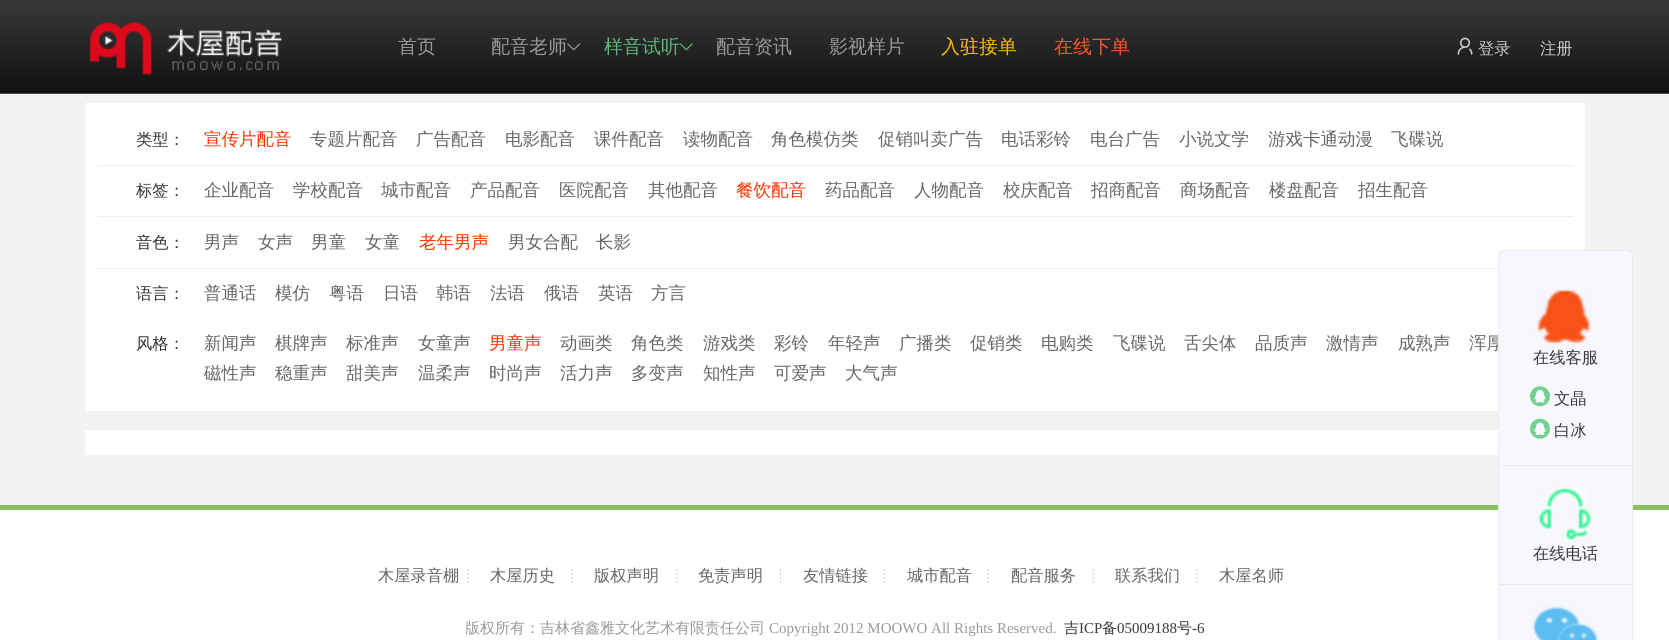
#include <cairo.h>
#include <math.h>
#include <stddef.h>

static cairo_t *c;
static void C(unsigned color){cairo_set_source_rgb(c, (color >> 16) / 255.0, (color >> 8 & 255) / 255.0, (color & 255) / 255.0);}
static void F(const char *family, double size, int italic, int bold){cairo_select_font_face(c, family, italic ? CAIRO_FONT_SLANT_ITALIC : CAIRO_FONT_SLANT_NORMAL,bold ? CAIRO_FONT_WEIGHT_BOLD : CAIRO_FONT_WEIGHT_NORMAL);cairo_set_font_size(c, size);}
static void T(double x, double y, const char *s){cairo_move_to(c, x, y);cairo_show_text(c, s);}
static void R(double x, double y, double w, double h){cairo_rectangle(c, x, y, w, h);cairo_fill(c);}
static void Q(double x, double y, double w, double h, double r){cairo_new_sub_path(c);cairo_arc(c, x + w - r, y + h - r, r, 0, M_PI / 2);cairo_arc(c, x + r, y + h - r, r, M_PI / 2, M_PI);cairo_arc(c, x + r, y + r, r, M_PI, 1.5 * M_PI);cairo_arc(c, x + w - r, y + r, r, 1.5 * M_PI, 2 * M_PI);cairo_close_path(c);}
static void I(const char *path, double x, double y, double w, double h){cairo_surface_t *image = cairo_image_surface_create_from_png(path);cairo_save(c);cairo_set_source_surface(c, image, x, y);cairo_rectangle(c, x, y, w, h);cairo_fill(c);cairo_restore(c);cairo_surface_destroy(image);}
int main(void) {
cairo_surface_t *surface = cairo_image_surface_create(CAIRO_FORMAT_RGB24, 1669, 640);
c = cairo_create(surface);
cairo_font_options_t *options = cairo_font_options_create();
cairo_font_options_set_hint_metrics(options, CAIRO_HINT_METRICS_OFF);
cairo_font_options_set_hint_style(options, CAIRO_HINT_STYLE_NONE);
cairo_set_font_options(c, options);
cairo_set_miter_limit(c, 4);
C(0xf2f2f2);
cairo_paint(c);
I("1.png",0,0,1669,94);
I("2.png",89,22,193,54);
F("WenQuanYi Zen Hei Medium",19,0,0);
C(0x999999);
T(398,53,"首页");
T(491,53,"配音老师");
I("3.png",567,43,14,8);
C(0x5fb878);
T(604,53,"样音试听");
I("4.png",679,43,14,8);
C(0x999999);
T(716,53,"配音资讯");
T(829,53,"影视样片");
C(0xffb800);
T(941,53,"入驻接单");
C(0xff5722);
T(1054,53,"在线下单");
I("5.png",1457,37,16,18);
F("WenQuanYi Zen Hei Medium",16.25,0,0);
C(0xcccccc);
T(1478,54,"登录");
T(1540,54,"注册");
C(0xffffff);
R(85,103,1500,308);
C(0xeeeeee);
R(98,165,1475,1);
C(0x333333);
T(136,145,"类型：");
F("WenQuanYi Zen Hei Medium",17.5,0,0);
C(0xff3300);
T(204,145,"宣传片配音");
C(0x666666);
T(310,145,"专题片配音");
T(416,145,"广告配音");
T(505,145,"电影配音");
T(594,145,"课件配音");
T(683,145,"读物配音");
T(771,145,"角色模仿类");
T(878,145,"促销叫卖广告");
T(1001,145,"电话彩铃");
T(1090,145,"电台广告");
T(1179,145,"小说文学");
T(1268,145,"游戏卡通动漫");
T(1391,145,"飞碟说");
C(0xeeeeee);
R(98,216,1475,1);
F("WenQuanYi Zen Hei Medium",16.25,0,0);
C(0x333333);
T(136,196,"标签：");
F("WenQuanYi Zen Hei Medium",17.5,0,0);
C(0x666666);
T(204,196,"企业配音");
T(293,196,"学校配音");
T(381,196,"城市配音");
T(470,196,"产品配音");
T(559,196,"医院配音");
T(648,196,"其他配音");
C(0xff3300);
T(736,196,"餐饮配音");
C(0x666666);
T(825,196,"药品配音");
T(914,196,"人物配音");
T(1003,196,"校庆配音");
T(1091,196,"招商配音");
T(1180,196,"商场配音");
T(1269,196,"楼盘配音");
T(1358,196,"招生配音");
C(0xeeeeee);
R(98,268,1400,1);
F("WenQuanYi Zen Hei Medium",16.25,0,0);
C(0x333333);
T(136,248,"音色：");
F("WenQuanYi Zen Hei Medium",17.5,0,0);
C(0x666666);
T(204,248,"男声");
T(258,248,"女声");
T(311,248,"男童");
T(365,248,"女童");
C(0xff3300);
T(419,248,"老年男声");
C(0x666666);
T(508,248,"男女合配");
T(596,248,"长影");
F("WenQuanYi Zen Hei Medium",16.25,0,0);
C(0x333333);
T(136,299,"语言：");
F("WenQuanYi Zen Hei Medium",17.5,0,0);
C(0x666666);
T(204,299,"普通话");
T(275,299,"模仿");
T(329,299,"粤语");
T(383,299,"日语");
T(436,299,"韩语");
T(490,299,"法语");
T(544,299,"俄语");
T(598,299,"英语");
T(651,299,"方言");
F("WenQuanYi Zen Hei Medium",16.25,0,0);
C(0x333333);
T(136,349,"风格：");
F("WenQuanYi Zen Hei Medium",17.5,0,0);
C(0x666666);
T(204,349,"新闻声");
T(275,349,"棋牌声");
T(346,349,"标准声");
T(418,349,"女童声");
C(0xff3300);
T(489,349,"男童声");
C(0x666666);
T(560,349,"动画类");
T(631,349,"角色类");
T(703,349,"游戏类");
T(774,349,"彩铃");
T(828,349,"年轻声");
T(899,349,"广播类");
T(970,349,"促销类");
T(1041,349,"电购类");
T(1113,349,"飞碟说");
T(1184,349,"舌尖体");
T(1255,349,"品质声");
T(1326,349,"激情声");
T(1398,349,"成熟声");
T(1469,349,"浑厚");
T(204,379,"磁性声");
T(275,379,"稳重声");
T(346,379,"甜美声");
T(418,379,"温柔声");
T(489,379,"时尚声");
T(560,379,"活力声");
T(631,379,"多变声");
T(703,379,"知性声");
T(774,379,"可爱声");
T(845,379,"大气声");
C(0xffffff);
R(85,430,1413,25);
R(0,510,1669,130);
C(0x8bc260);
R(0,505,1669,5);
C(0xf7f7ff);
Q(1498.5,250.5,134,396,5.5);
cairo_fill_preserve(c);
C(0xeaeaec);
cairo_set_line_width(c,1);
cairo_stroke(c);
R(1499,465,132,1);
I("6.png",1534,289,64,58);
F("WenQuanYi Zen Hei Medium",16.25,0,0);
C(0x393939);
T(1533,363,"在线客服");
I("7.png",1530,386,20,21);
T(1554,404,"文晶");
I("8.png",1530,418,20,21);
T(1554,436,"白冰");
C(0xeaeaec);
R(1499,584,132,1);
I("9.png",1534,485,65,57);
C(0x393939);
T(1533,559,"在线电话");
I("10.png",1531,605,68,35);
I("11.png",467,569,2,14);
C(0x666666);
T(378,581,"木屋录音棚");
I("12.png",571,569,2,14);
T(490,581,"木屋历史");
I("12.png",676,569,2,14);
T(594,581,"版权声明");
I("13.png",780,569,2,14);
T(698,581,"免责声明");
I("14.png",883,569,2,14);
T(803,581,"友情链接");
I("11.png",987,569,2,14);
T(907,581,"城市配音");
I("11.png",1092,569,2,14);
T(1011,581,"配音服务");
I("12.png",1196,569,2,14);
T(1115,581,"联系我们");
T(1219,581,"木屋名师");
F("WenQuanYi Zen Hei Medium",15,0,0);
C(0x999999);
T(465,633,"版权所有：吉林省鑫雅文化艺术有限责任公司");
F("Liberation Serif",15,0,0);
T(769,633,"Copyright 2012 MOOWO All Rights Reserved.");
F("WenQuanYi Zen Hei Medium",15,0,0);
C(0x393939);
T(1064,633,"吉");
F("Liberation Serif",15,0,0);
T(1079,633,"ICP");
F("WenQuanYi Zen Hei Medium",15,0,0);
T(1102,633,"备");
F("Liberation Serif",15,0,0);
T(1117,633,"05009188");
F("WenQuanYi Zen Hei Medium",15,0,0);
T(1177,633,"号");
F("Liberation Serif",15,0,0);
T(1192,633,"-6");
cairo_surface_write_to_png(surface, "o.png");
cairo_font_options_destroy(options);
cairo_destroy(c);
cairo_surface_destroy(surface);
return 0;
}
